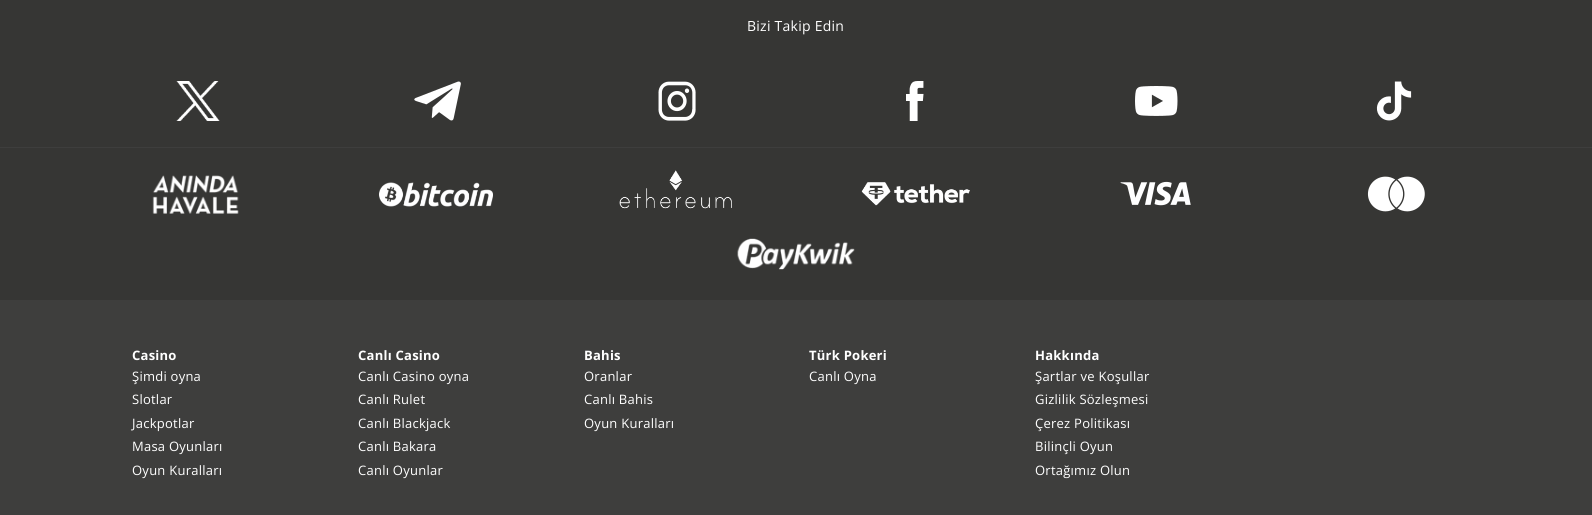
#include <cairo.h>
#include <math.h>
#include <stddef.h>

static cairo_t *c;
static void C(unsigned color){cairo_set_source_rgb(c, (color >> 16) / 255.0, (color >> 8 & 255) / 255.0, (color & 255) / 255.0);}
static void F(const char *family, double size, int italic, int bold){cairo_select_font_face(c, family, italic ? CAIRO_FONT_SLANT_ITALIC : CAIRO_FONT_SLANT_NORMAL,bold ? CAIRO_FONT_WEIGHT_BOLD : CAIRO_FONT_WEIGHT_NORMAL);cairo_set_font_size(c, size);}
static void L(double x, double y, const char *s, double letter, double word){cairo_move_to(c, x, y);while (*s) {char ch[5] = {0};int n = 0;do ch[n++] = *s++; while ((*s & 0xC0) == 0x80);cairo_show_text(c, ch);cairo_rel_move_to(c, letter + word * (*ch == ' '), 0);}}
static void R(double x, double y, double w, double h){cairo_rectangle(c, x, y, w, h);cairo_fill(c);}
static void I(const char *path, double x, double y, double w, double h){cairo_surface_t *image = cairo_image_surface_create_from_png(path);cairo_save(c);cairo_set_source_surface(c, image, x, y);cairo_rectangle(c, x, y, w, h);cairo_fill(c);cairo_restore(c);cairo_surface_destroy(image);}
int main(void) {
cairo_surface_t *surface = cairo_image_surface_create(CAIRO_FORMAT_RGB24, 1592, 515);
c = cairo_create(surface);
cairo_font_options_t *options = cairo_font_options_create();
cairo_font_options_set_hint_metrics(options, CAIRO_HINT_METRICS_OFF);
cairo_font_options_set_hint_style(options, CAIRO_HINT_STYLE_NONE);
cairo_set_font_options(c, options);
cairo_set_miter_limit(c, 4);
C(0x363634);
cairo_paint(c);
C(0x3e3e3d);
R(0,147,1592,1);
F("Open Sans",14,0,0);
C(0xffffff);
L(747,31,"Bizi Takip Edin",.25,0);
I("1.png",176,81,44,40);
I("2.png",414,81,47,40);
I("3.png",658,81,38,40);
I("4.png",906,81,18,40);
I("5.png",1135,86,43,30);
I("6.png",1376,81,36,40);
C(0x3e3e3d);
R(0,300,1592,215);
I("7.png",152,175,87,39);
I("8.png",379,182,114,25);
I("9.png",619,170,113,39);
I("10.png",861,182,109,24);
I("11.png",1120,181,71,25);
I("12.png",1367,176,58,36);
I("13.png",737,238,118,32);
F("Open Sans",13,0,1);
C(0xffffff);
L(132,360,"Casino",.25,0);
F("Open Sans",13,0,0);
L(132,381,"Şimdi oyna",.25,0);
L(132,404,"Slotlar",.25,0);
L(132,428,"Jackpotlar",.25,0);
L(132,451,"Masa Oyunları",.25,0);
L(132,475,"Oyun Kuralları",.25,0);
F("Open Sans",13,0,1);
L(358,360,"Canlı Casino",.25,0);
F("Open Sans",13,0,0);
L(358,381,"Canlı Casino oyna",.25,0);
L(358,404,"Canlı Rulet",.25,0);
L(358,428,"Canlı Blackjack",.25,0);
L(358,451,"Canlı Bakara",.25,0);
L(358,475,"Canlı Oyunlar",.25,0);
F("Open Sans",13,0,1);
L(584,360,"Bahis",.25,0);
F("Open Sans",13,0,0);
L(584,381,"Oranlar",.25,0);
L(584,404,"Canlı Bahis",.25,0);
L(584,428,"Oyun Kuralları",.25,0);
F("Open Sans",13,0,1);
L(809,360,"Türk Pokeri",.25,0);
F("Open Sans",13,0,0);
L(809,381,"Canlı Oyna",.25,0);
F("Open Sans",13,0,1);
L(1035,360,"Hakkında",.25,0);
F("Open Sans",13,0,0);
L(1035,381,"Şartlar ve Koşullar",.25,0);
L(1035,404,"Gizlilik Sözleşmesi",.25,0);
L(1035,428,"Çerez Politikası",.25,0);
L(1035,451,"Bilinçli Oyun",.25,0);
L(1035,475,"Ortağımız Olun",.25,0);
cairo_surface_write_to_png(surface, "o.png");
cairo_font_options_destroy(options);
cairo_destroy(c);
cairo_surface_destroy(surface);
return 0;
}
